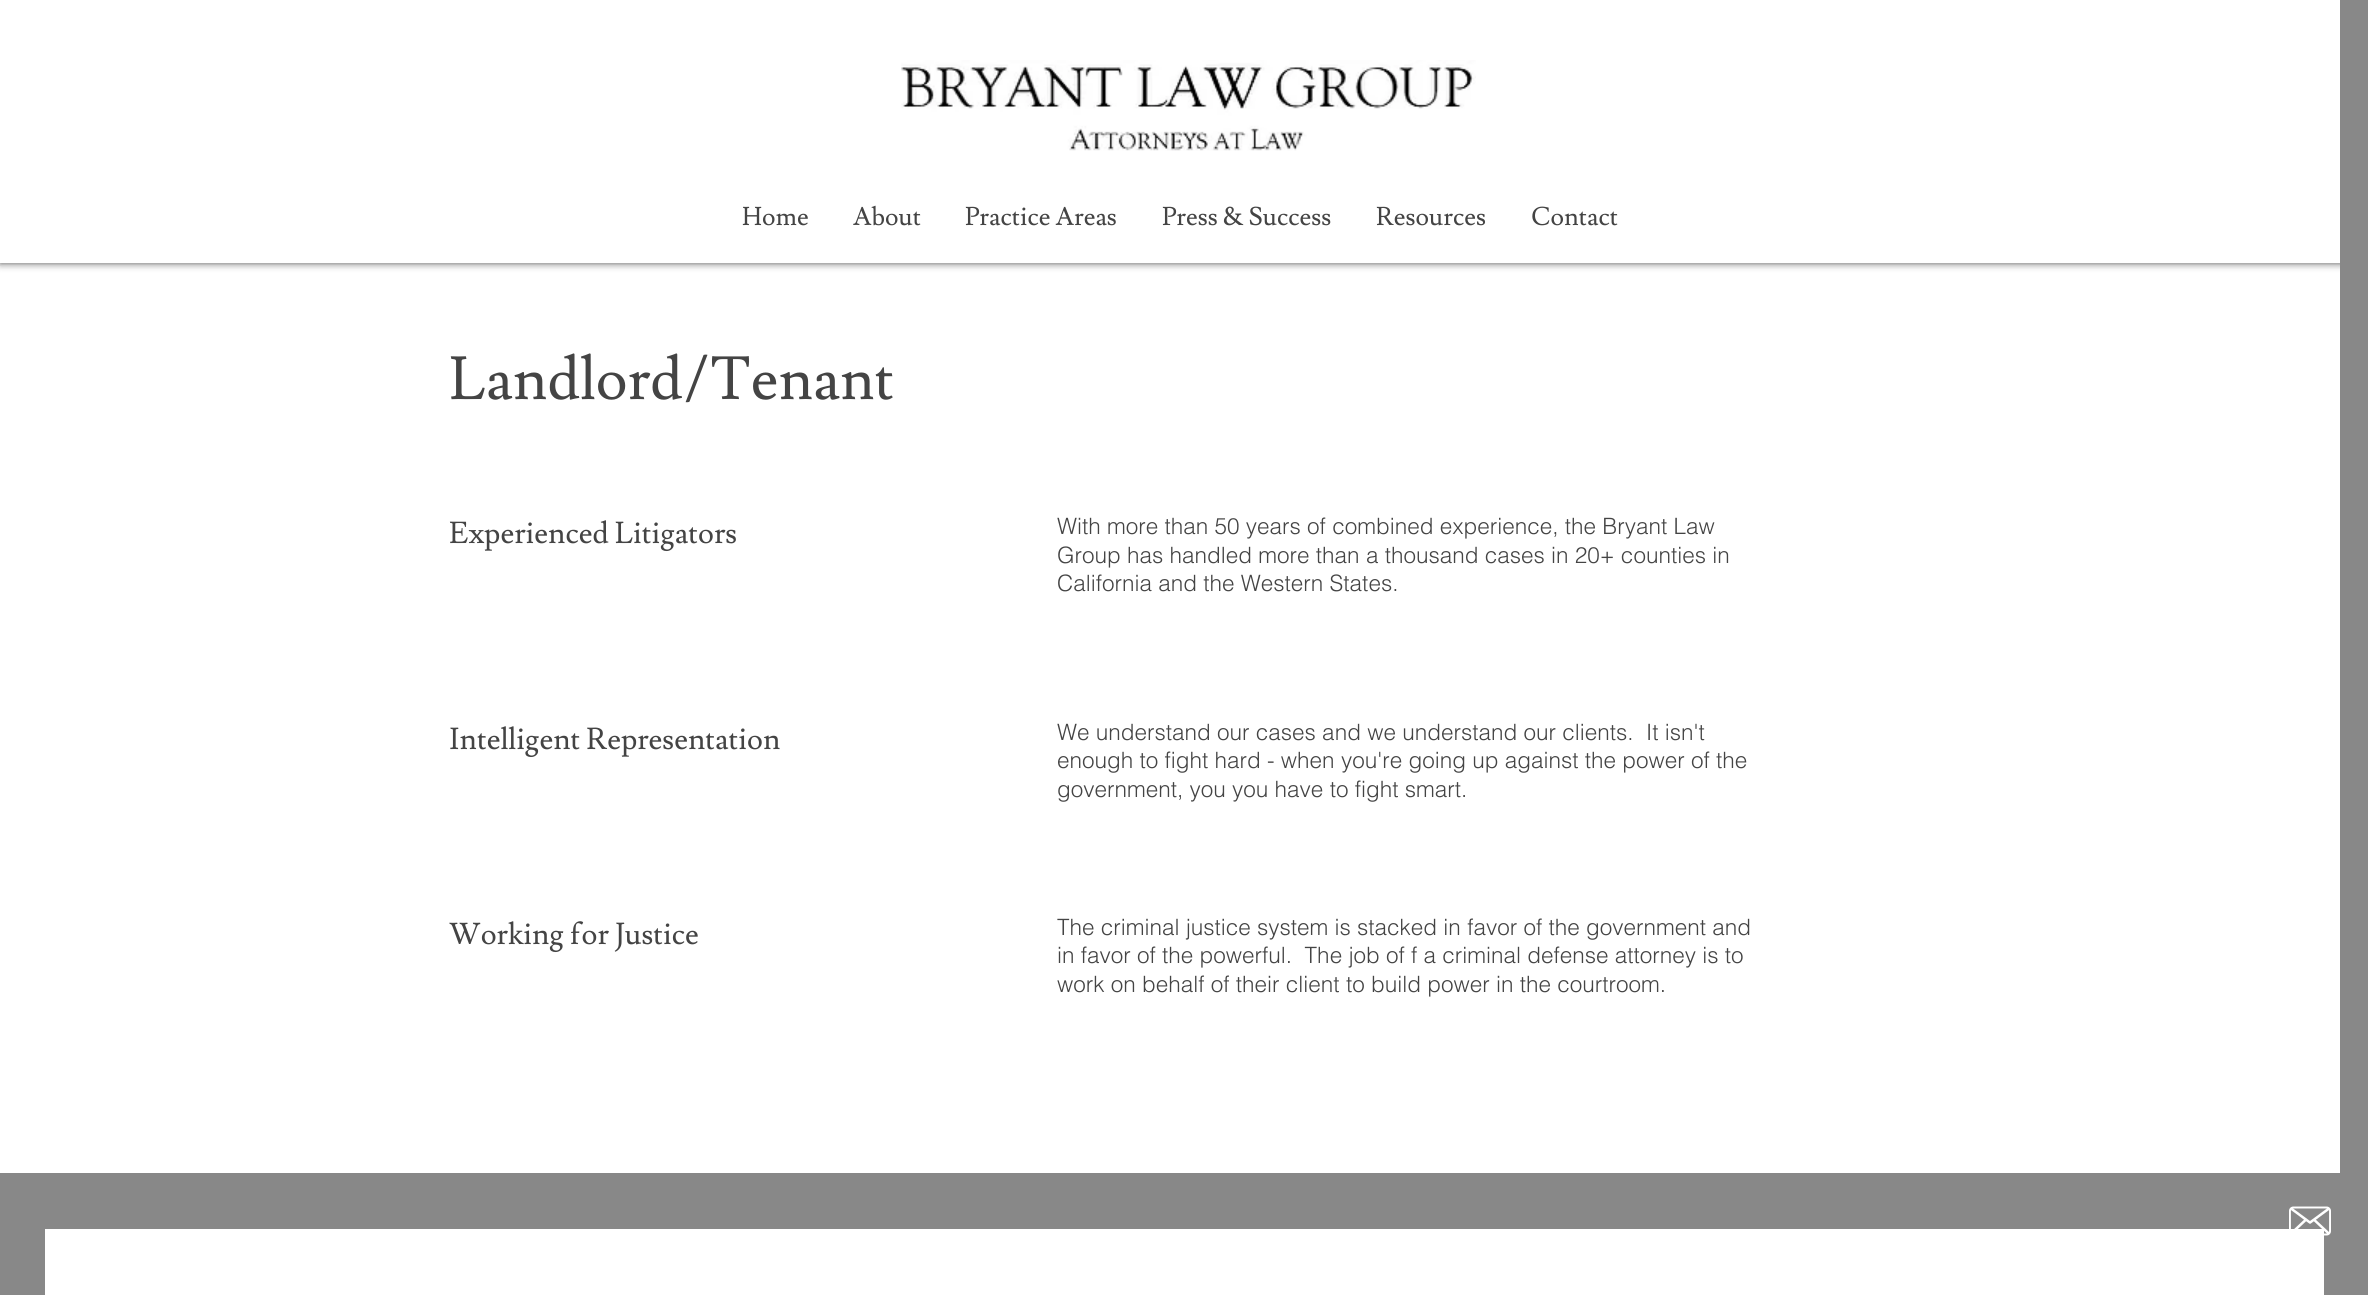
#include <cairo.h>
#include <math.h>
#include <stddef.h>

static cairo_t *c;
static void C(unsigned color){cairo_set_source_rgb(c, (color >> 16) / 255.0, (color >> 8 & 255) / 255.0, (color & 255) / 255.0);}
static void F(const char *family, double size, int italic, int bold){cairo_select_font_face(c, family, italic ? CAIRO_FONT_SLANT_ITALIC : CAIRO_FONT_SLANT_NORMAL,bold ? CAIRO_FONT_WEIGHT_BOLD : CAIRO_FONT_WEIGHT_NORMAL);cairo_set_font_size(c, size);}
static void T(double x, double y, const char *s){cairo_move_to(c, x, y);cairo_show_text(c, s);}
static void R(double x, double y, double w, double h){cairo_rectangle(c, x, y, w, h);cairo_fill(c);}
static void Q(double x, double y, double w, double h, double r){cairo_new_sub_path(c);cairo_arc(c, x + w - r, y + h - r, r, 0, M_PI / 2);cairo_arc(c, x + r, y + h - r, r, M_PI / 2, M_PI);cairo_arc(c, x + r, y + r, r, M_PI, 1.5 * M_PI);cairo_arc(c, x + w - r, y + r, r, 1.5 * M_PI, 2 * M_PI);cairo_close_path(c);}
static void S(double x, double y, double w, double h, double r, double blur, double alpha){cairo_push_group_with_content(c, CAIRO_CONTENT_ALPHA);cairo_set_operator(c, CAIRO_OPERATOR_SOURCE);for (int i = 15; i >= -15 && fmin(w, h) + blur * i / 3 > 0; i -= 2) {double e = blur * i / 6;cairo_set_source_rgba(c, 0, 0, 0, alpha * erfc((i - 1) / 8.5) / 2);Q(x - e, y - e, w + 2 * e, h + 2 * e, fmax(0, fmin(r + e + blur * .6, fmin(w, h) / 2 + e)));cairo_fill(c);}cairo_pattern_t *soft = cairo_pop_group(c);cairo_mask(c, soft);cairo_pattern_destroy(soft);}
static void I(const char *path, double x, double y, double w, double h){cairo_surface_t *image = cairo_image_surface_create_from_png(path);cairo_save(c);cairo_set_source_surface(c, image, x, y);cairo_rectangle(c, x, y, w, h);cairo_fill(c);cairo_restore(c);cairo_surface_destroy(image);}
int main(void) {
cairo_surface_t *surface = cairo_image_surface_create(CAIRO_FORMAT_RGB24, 2368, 1295);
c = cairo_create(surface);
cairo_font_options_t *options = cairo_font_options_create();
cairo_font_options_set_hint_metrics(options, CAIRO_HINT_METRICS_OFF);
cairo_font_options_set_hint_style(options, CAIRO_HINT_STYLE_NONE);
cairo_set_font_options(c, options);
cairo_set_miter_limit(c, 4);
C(0xffffff);
cairo_paint(c);
cairo_save(c);
cairo_set_fill_rule(c,CAIRO_FILL_RULE_EVEN_ODD);
cairo_new_path(c);
cairo_move_to(c,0,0);
cairo_line_to(c,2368,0);
cairo_line_to(c,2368,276);
cairo_line_to(c,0,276);
cairo_close_path(c);
cairo_move_to(c,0,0);
cairo_line_to(c,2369,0);
cairo_line_to(c,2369,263);
cairo_line_to(c,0,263);
cairo_close_path(c);
cairo_clip(c);
C(0x000000);
S(0,0,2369,263,0,4,.7);
cairo_restore(c);
cairo_set_source_rgba(c,1,1,1,0.6);
R(0,262,2340,1);
I("1.png",901,60,575,91);
F("Lusitana",25.5,0,0);
C(0x444444);
T(742,225,"Home");
T(853,225,"About");
T(965,225,"Practice Areas");
T(1162,225,"Press & Success");
T(1376,225,"Resources");
T(1531,225,"Contact");
C(0x888888);
R(2340,0,28,1295);
F("Lusitana",60,0,0);
C(0x444444);
T(449,399,"Landlord/Tenant");
F("Lusitana",30,0,0);
T(449,543,"Experienced Litigators");
F("helvetica Light",22.5,0,0);
T(1057,534,"With more than 50 years of combined experience, the Bryant Law");
T(1057,563,"Group has handled more than a thousand cases in 20+ counties in");
T(1057,591,"California and the Western States.");
F("Lusitana",30,0,0);
T(449,749,"Intelligent Representation");
F("helvetica Light",22.5,0,0);
T(1057,740,"We understand our cases and we understand our clients.  It isn't");
T(1057,768,"enough to fight hard - when you're going up against the power of the");
T(1057,797,"government, you you have to fight smart.");
F("Lusitana",30,0,0);
T(449,944,"Working for Justice");
F("helvetica Light",22.5,0,0);
T(1057,935,"The criminal justice system is stacked in favor of the government and");
T(1057,963,"in favor of the powerful.  The job of f a criminal defense attorney is to");
T(1057,992,"work on behalf of their client to build power in the courtroom.");
C(0x888888);
R(0,1173,2340,122);
C(0xffffff);
R(45,1229,2279,66);
I("2.png",2289,1206,42,30);
cairo_surface_write_to_png(surface, "o.png");
cairo_font_options_destroy(options);
cairo_destroy(c);
cairo_surface_destroy(surface);
return 0;
}
